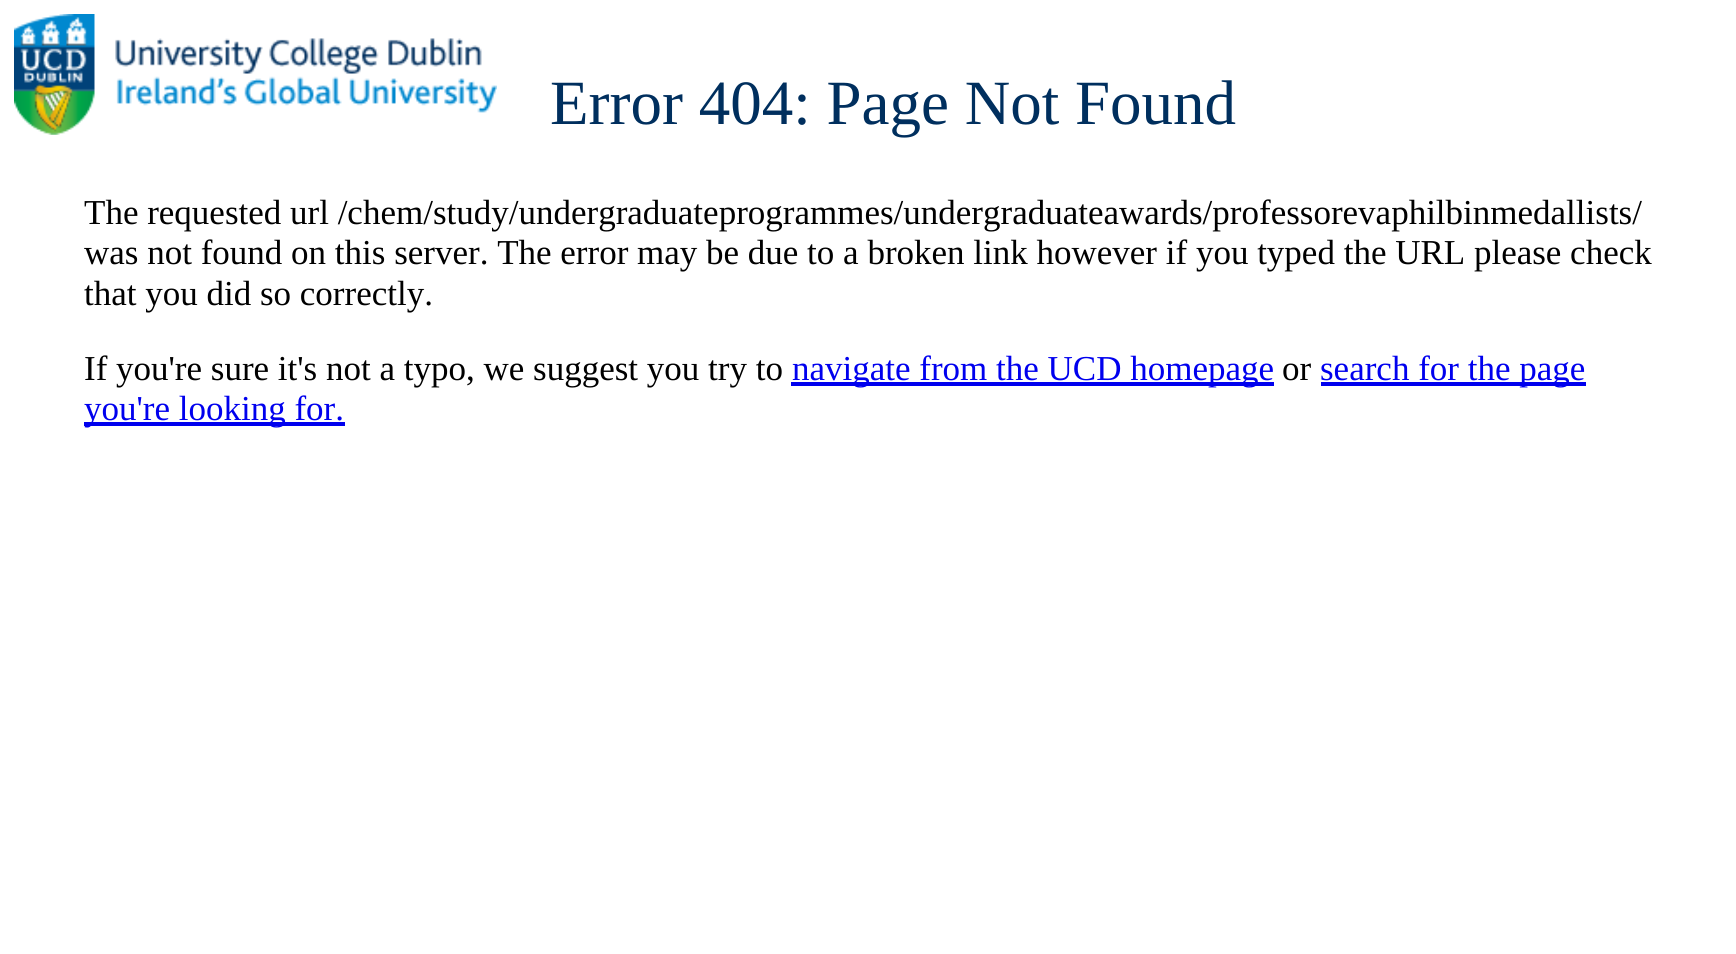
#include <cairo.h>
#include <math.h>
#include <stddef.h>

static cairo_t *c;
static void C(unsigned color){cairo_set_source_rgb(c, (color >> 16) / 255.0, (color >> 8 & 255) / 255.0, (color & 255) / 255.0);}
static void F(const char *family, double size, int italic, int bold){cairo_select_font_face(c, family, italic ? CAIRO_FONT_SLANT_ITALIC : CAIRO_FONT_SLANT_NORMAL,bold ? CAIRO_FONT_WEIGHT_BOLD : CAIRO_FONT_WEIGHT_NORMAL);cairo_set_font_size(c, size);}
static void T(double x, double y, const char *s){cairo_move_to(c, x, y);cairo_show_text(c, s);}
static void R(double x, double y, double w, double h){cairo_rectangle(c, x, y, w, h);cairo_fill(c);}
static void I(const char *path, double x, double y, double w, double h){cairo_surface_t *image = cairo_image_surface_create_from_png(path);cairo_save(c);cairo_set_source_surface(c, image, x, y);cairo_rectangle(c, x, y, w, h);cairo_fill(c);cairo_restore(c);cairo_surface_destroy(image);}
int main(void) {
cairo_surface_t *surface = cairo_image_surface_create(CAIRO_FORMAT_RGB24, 1736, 954);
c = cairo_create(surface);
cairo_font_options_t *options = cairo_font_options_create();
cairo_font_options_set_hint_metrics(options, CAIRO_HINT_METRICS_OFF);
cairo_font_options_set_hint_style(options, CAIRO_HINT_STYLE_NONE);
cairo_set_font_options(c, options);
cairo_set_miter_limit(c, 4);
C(0xffffff);
cairo_paint(c);
I("1.png",14,14,483,121);
F("Liberation Serif",63,0,0);
C(0x002f5e);
T(550,124,"Error 404: Page Not Found");
F("Liberation Serif",35,0,0);
C(0x000000);
T(84,224,"The requested url /chem/study/undergraduateprogrammes/undergraduateawards/professorevaphilbinmedallists/");
T(84,264,"was not found on this server. The error may be due to a broken link however if you typed the URL please check");
T(84,305,"that you did so correctly.");
T(84,380,"If you're sure it's not a typo, we suggest you try to");
C(0x0000ee);
R(791,382,483,4);
T(792,380,"navigate from the UCD homepage");
C(0x000000);
T(1282,380,"or");
C(0x0000ee);
R(1321,382,265,4);
T(1320,380,"search for the page");
R(84,422,261,4);
T(84,420,"you're looking for.");
cairo_surface_write_to_png(surface, "o.png");
cairo_font_options_destroy(options);
cairo_destroy(c);
cairo_surface_destroy(surface);
return 0;
}
